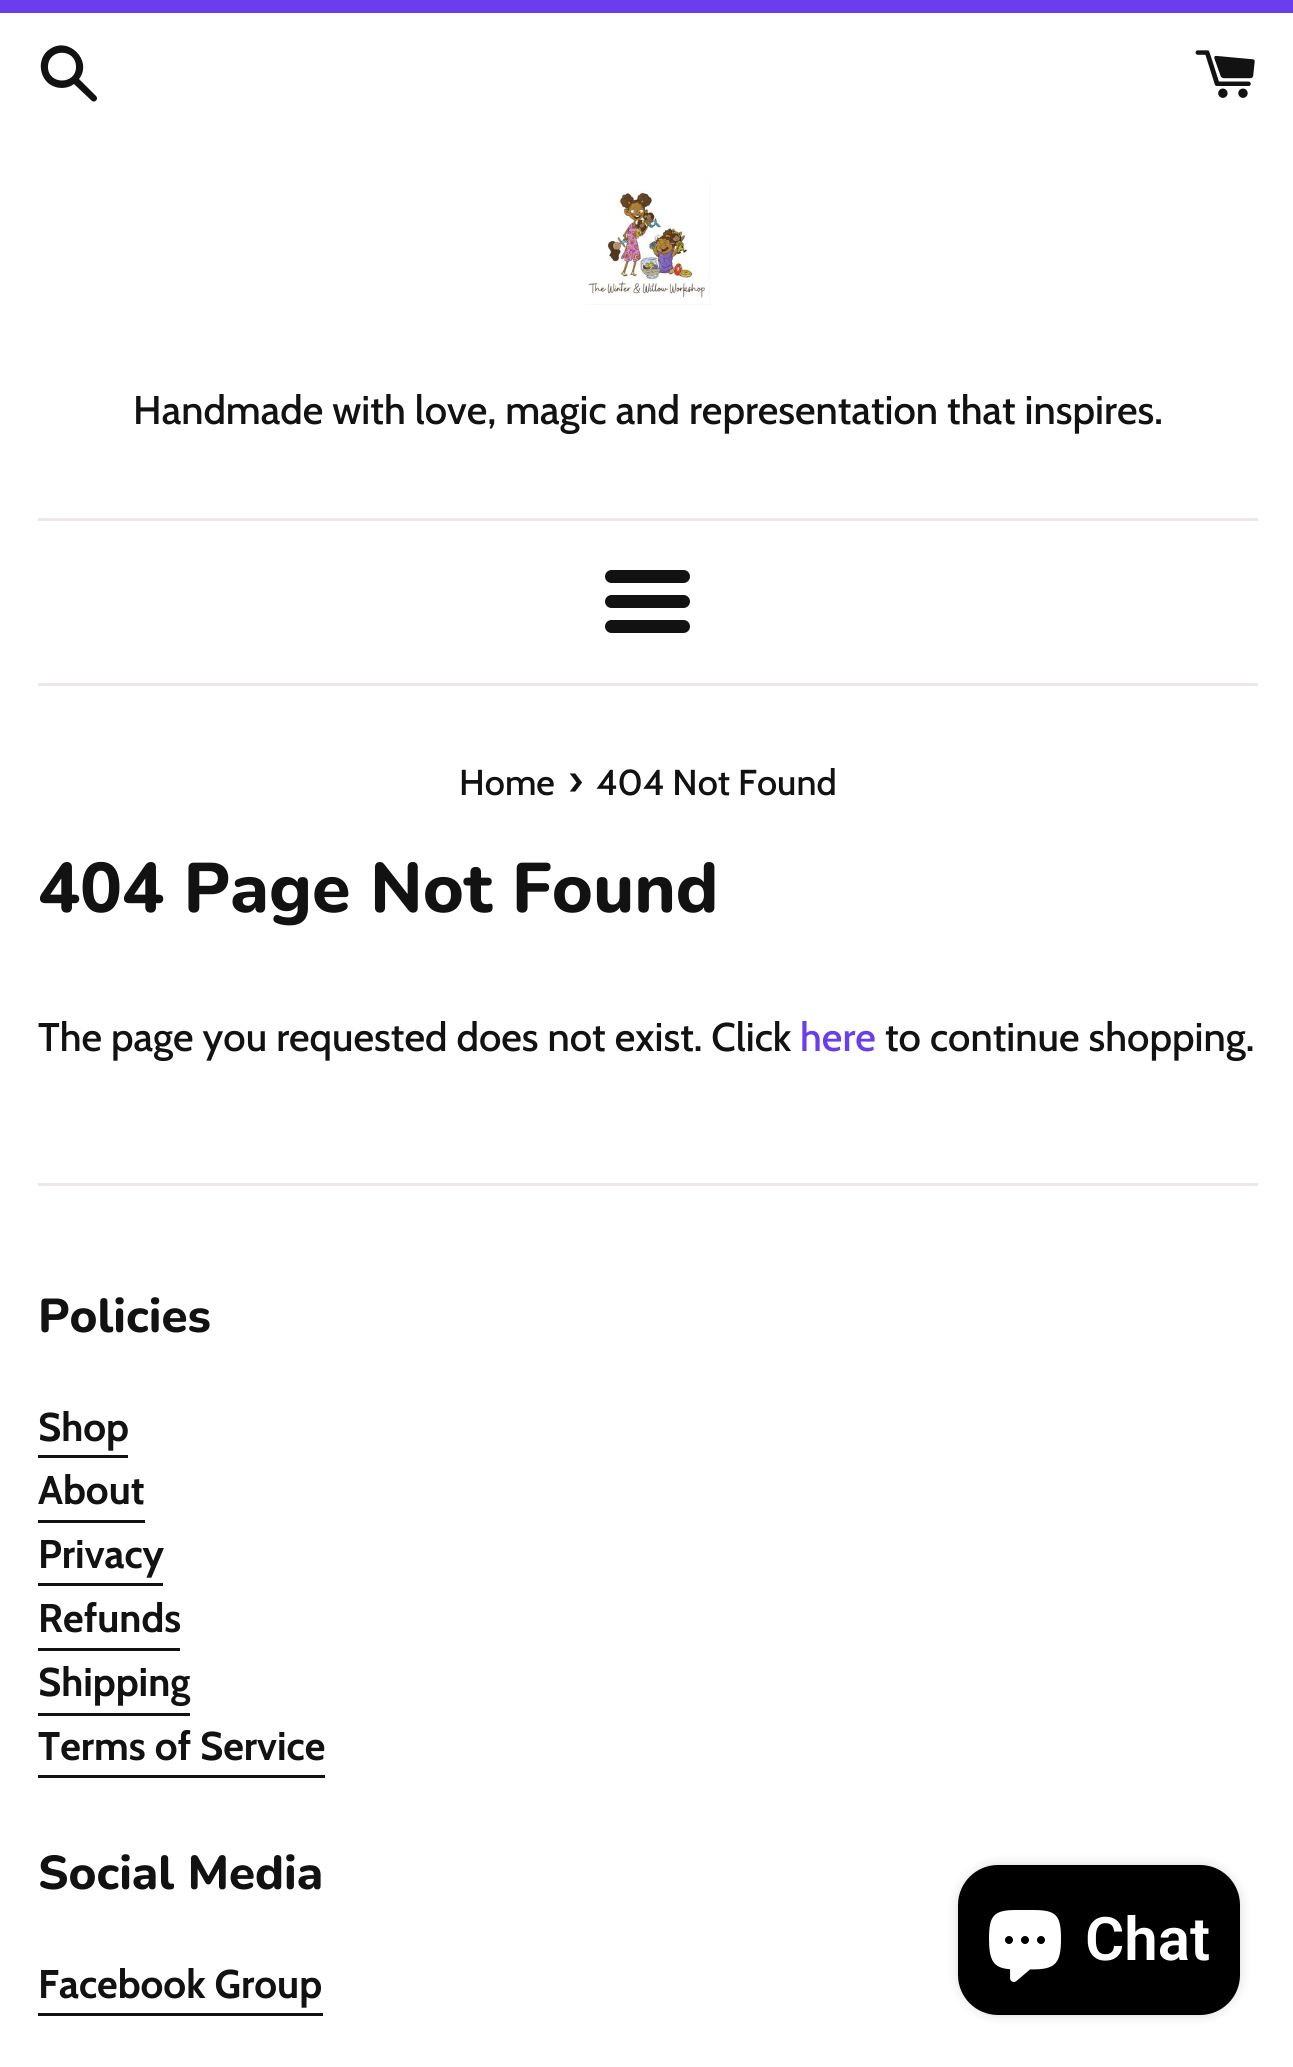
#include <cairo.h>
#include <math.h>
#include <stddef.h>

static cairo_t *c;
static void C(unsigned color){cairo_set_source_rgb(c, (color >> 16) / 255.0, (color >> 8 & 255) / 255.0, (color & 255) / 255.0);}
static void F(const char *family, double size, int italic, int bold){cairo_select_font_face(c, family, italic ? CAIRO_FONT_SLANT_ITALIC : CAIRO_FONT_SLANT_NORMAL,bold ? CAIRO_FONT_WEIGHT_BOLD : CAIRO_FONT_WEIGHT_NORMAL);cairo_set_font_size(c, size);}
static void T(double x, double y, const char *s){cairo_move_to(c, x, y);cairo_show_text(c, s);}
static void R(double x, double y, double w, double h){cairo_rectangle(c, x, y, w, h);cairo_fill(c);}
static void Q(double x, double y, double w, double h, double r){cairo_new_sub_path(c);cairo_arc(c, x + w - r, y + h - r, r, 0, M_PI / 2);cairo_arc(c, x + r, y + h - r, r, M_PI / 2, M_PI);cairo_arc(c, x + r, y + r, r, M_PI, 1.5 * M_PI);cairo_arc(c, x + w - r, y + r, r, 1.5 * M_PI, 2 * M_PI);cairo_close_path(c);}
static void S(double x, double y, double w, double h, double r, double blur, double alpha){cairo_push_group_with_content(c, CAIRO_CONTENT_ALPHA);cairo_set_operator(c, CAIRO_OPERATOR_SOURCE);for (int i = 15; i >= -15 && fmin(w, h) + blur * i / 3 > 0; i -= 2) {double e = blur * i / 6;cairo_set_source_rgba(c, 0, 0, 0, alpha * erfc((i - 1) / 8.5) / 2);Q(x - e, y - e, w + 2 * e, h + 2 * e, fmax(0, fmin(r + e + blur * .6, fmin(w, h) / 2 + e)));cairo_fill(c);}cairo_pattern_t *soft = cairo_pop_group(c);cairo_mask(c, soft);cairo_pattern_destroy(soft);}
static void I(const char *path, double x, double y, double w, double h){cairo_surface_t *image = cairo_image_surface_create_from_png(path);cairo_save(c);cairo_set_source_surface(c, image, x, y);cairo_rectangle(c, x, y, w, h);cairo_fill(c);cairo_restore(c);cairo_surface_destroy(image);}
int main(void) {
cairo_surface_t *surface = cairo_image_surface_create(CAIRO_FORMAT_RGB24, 1293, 2067);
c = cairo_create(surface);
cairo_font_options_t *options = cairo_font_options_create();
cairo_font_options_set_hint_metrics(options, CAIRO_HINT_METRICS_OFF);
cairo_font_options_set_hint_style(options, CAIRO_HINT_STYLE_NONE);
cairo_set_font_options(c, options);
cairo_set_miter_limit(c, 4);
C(0xffffff);
cairo_paint(c);
C(0x6a3eec);
R(0,0,1293,13);
C(0x121213);
cairo_new_path(c);
cairo_move_to(c,96,96);
cairo_line_to(c,79,79);
cairo_curve_to(c,93,61,69,36,50,49);
cairo_curve_to(c,45,52,42,57,41,63);
cairo_curve_to(c,40,69,42,77,47,82);
cairo_curve_to(c,54,89,66,90,74,84);
cairo_line_to(c,92,101);
cairo_curve_to(c,95,103,99,99,96,96);
cairo_close_path(c);
cairo_move_to(c,48,67);
cairo_curve_to(c,48,48,76,48,76,67);
cairo_curve_to(c,76,85,48,85,48,67);
cairo_close_path(c);
cairo_fill(c);
I("1.png",1195,50,60,48);
I("2.png",585,180,125,125);
F("Cabin Medium",40,0,0);
T(133,424,"Handmade with love, magic and representation that inspires.");
C(0xede8e7);
R(38,518,1220,3);
C(0x121213);
Q(605,570,85,13,6.5);
cairo_fill(c);
Q(605,595,85,13,6.5);
cairo_fill(c);
Q(605,620,85,13,6.5);
cairo_fill(c);
C(0xede8e7);
R(38,683,1220,3);
F("Cabin Medium",36,0,0);
C(0x121213);
T(459,795,"Home");
F("Cabin Medium",44,0,0);
T(568,795,"›");
F("Cabin Medium",36,0,0);
T(596,795,"404 Not Found");
F("Nunito ExtraBold",70,0,0);
T(38,912,"404 Page Not Found");
F("Cabin Medium",40,0,0);
T(38,1051,"The page you requested does not exist. Click");
C(0x6a3eec);
T(800,1051,"here");
C(0x121213);
T(885,1051,"to continue shopping.");
C(0xede8e7);
R(38,1183,1220,3);
F("Nunito ExtraBold",47.5,0,0);
C(0x121213);
T(38,1332,"Policies");
F("Cabin",40,0,1);
T(38,1441,"Shop");
R(38,1455,90,3);
T(38,1504,"About");
R(38,1520,107,3);
T(38,1568,"Privacy");
R(38,1583,125,3);
T(38,1632,"Refunds");
R(38,1648,142,3);
T(38,1696,"Shipping");
R(38,1713,152,3);
T(38,1760,"Terms of Service");
R(38,1775,287,3);
F("Nunito ExtraBold",47.5,0,0);
T(38,1889,"Social Media");
F("Cabin",40,0,1);
T(38,1998,"Facebook Group");
R(38,2013,285,3);
C(0x000000);
S(958,1865,282,150,40,6,.15);
C(0x000000);
Q(958,1865,282,150,40);
cairo_fill(c);
I("3.png",989,1910,72,72);
F("Roboto SemiBold",60,0,0);
C(0xffffff);
T(1085,1960,"Chat");
cairo_surface_write_to_png(surface, "o.png");
cairo_font_options_destroy(options);
cairo_destroy(c);
cairo_surface_destroy(surface);
return 0;
}
